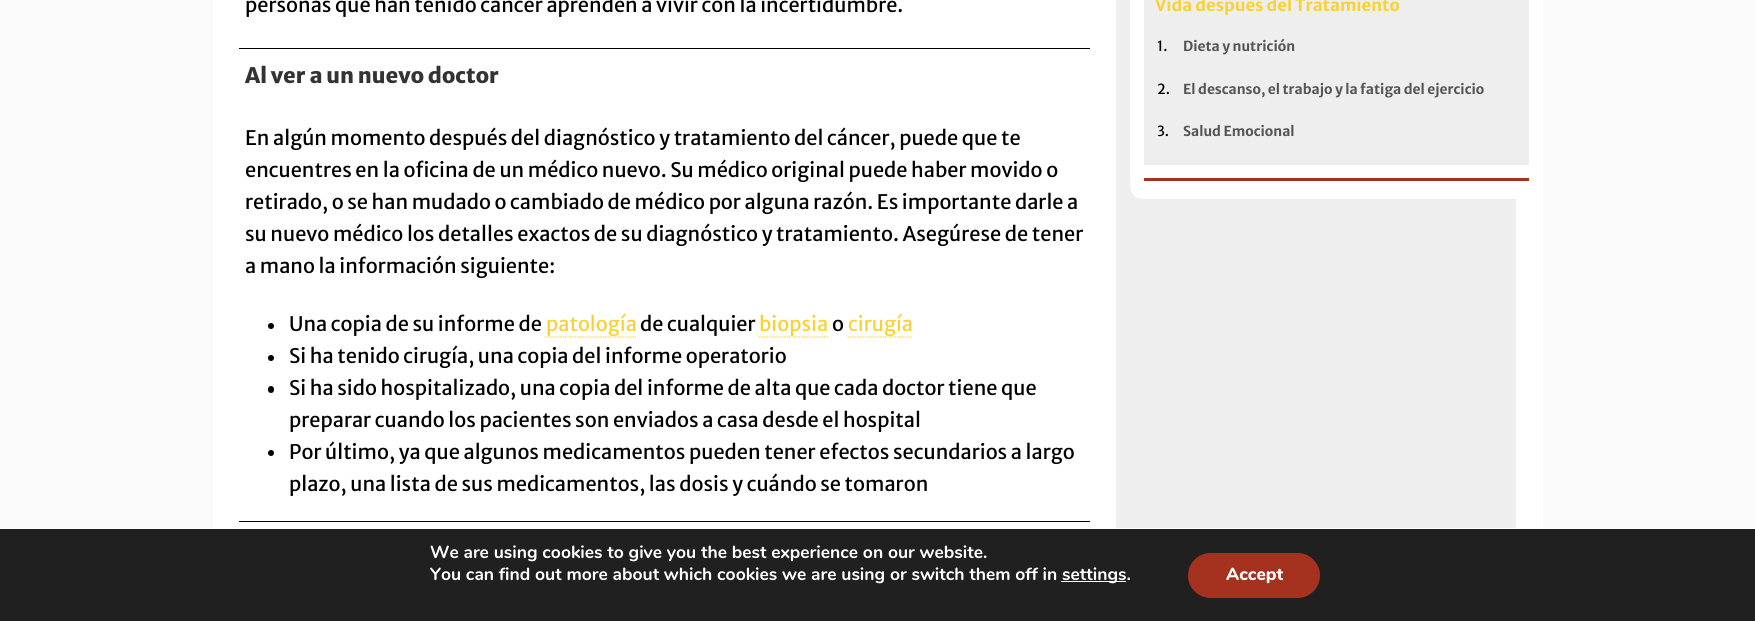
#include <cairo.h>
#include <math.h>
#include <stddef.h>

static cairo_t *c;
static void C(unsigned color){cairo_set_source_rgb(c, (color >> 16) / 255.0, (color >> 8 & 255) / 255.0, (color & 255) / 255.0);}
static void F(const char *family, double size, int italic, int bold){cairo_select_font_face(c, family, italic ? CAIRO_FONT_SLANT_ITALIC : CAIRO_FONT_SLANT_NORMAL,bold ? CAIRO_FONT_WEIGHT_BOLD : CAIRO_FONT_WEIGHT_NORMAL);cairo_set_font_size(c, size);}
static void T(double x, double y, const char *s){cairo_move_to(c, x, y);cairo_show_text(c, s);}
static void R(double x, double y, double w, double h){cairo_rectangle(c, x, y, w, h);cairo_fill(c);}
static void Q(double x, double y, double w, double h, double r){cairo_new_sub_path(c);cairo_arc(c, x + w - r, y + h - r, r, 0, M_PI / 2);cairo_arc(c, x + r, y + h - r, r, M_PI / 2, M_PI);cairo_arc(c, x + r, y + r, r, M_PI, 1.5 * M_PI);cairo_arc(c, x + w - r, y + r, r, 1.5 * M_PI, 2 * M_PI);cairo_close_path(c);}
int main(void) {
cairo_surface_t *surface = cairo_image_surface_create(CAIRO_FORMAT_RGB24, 1755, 621);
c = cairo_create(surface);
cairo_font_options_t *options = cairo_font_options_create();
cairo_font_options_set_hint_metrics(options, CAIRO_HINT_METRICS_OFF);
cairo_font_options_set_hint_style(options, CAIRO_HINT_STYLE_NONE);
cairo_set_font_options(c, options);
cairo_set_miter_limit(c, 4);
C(0xfafafa);
cairo_paint(c);
C(0xffffff);
R(213,0,903,528);
F("Merriweather Sans",20,0,0);
C(0x000000);
T(245,12,"personas que han tenido cáncer aprenden a vivir con la incertidumbre.");
R(239,48,851,1);
F("Merriweather Sans ExtraBold",21.25,0,0);
C(0x333333);
T(245,83,"Al ver a un nuevo doctor");
F("Merriweather Sans",20,0,0);
C(0x000000);
T(245,145,"En algún momento después del diagnóstico y tratamiento del cáncer, puede que te");
T(245,177,"encuentres en la oficina de un médico nuevo. Su médico original puede haber movido o");
T(245,209,"retirado, o se han mudado o cambiado de médico por alguna razón. Es importante darle a");
T(245,241,"su nuevo médico los detalles exactos de su diagnóstico y tratamiento. Asegúrese de tener");
T(245,273,"a mano la información siguiente:");
cairo_new_path(c);
cairo_arc(c,271,326,3,0,2 * M_PI);
cairo_fill(c);
T(289,331,"Una copia de su informe de");
cairo_new_path(c);
cairo_move_to(c,545,337);
cairo_line_to(c,636,337);
C(0xfad133);
cairo_set_line_width(c,1.2);
cairo_set_dash(c,(double[]){1.25,1.25},2,0);
cairo_stroke(c);
T(546,331,"patología");
C(0x000000);
T(640,331,"de cualquier");
C(0xfad133);
T(759,331,"biopsia");
cairo_new_path(c);
cairo_move_to(c,759,337);
cairo_line_to(c,829,337);
cairo_stroke(c);
C(0x000000);
T(832,331,"o");
cairo_new_path(c);
cairo_move_to(c,847.5,337);
cairo_line_to(c,912.5,337);
C(0xfad133);
cairo_stroke(c);
T(848,331,"cirugía");
C(0x000000);
cairo_new_path(c);
cairo_arc(c,271,358,3,0,2 * M_PI);
cairo_fill(c);
T(289,363,"Si ha tenido cirugía, una copia del informe operatorio");
Q(268,386,6,7,3);
cairo_fill(c);
T(289,395,"Si ha sido hospitalizado, una copia del informe de alta que cada doctor tiene que");
T(289,427,"preparar cuando los pacientes son enviados a casa desde el hospital");
cairo_new_path(c);
cairo_arc(c,271,453,3,0,2 * M_PI);
cairo_fill(c);
T(289,459,"Por último, ya que algunos medicamentos pueden tener efectos secundarios a largo");
T(289,491,"plazo, una lista de sus medicamentos, las dosis y cuándo se tomaron");
R(239,521,851,1);
C(0xffffff);
R(1516,186,27,342);
C(0xeeeeee);
R(1116,0,400,528);
C(0xffffff);
Q(1130,-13,413,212,13);
cairo_fill(c);
C(0xa5311f);
R(1144,178,385,3);
C(0xeeeeee);
R(1144,0,385,165);
F("Merriweather Sans",16.7,0,1);
C(0xfad133);
T(1155,11,"Vida despues del Tratamiento");
F("Merriweather Sans",14,0,0);
C(0x000000);
T(1157,51,"1.");
F("Merriweather Sans",13.75,0,1);
C(0x555555);
T(1183,51,"Dieta y nutrición");
F("Merriweather Sans",14,0,0);
C(0x000000);
T(1157,94,"2.");
F("Merriweather Sans",13.75,0,1);
C(0x555555);
T(1183,94,"El descanso, el trabajo y la fatiga del ejercicio");
F("Merriweather Sans",14,0,0);
C(0x000000);
T(1157,136,"3.");
F("Merriweather Sans",13.75,0,1);
C(0x555555);
T(1183,136,"Salud Emocional");
C(0x202020);
R(0,529,1755,92);
C(0xffffff);
R(0,528,1755,1);
F("Nunito",17.5,0,1);
T(430,558,"We are using cookies to give you the best experience on our website.");
T(430,580,"You can find out more about which cookies we are using or switch them off in");
R(1061,581,65,1);
T(1062,580,"settings.");
C(0xa5311f);
Q(1188,553,132,45,22.5);
cairo_fill(c);
F("Nunito ExtraBold",17.5,0,0);
C(0xffffff);
T(1226,580,"Accept");
cairo_surface_write_to_png(surface, "o.png");
cairo_font_options_destroy(options);
cairo_destroy(c);
cairo_surface_destroy(surface);
return 0;
}
